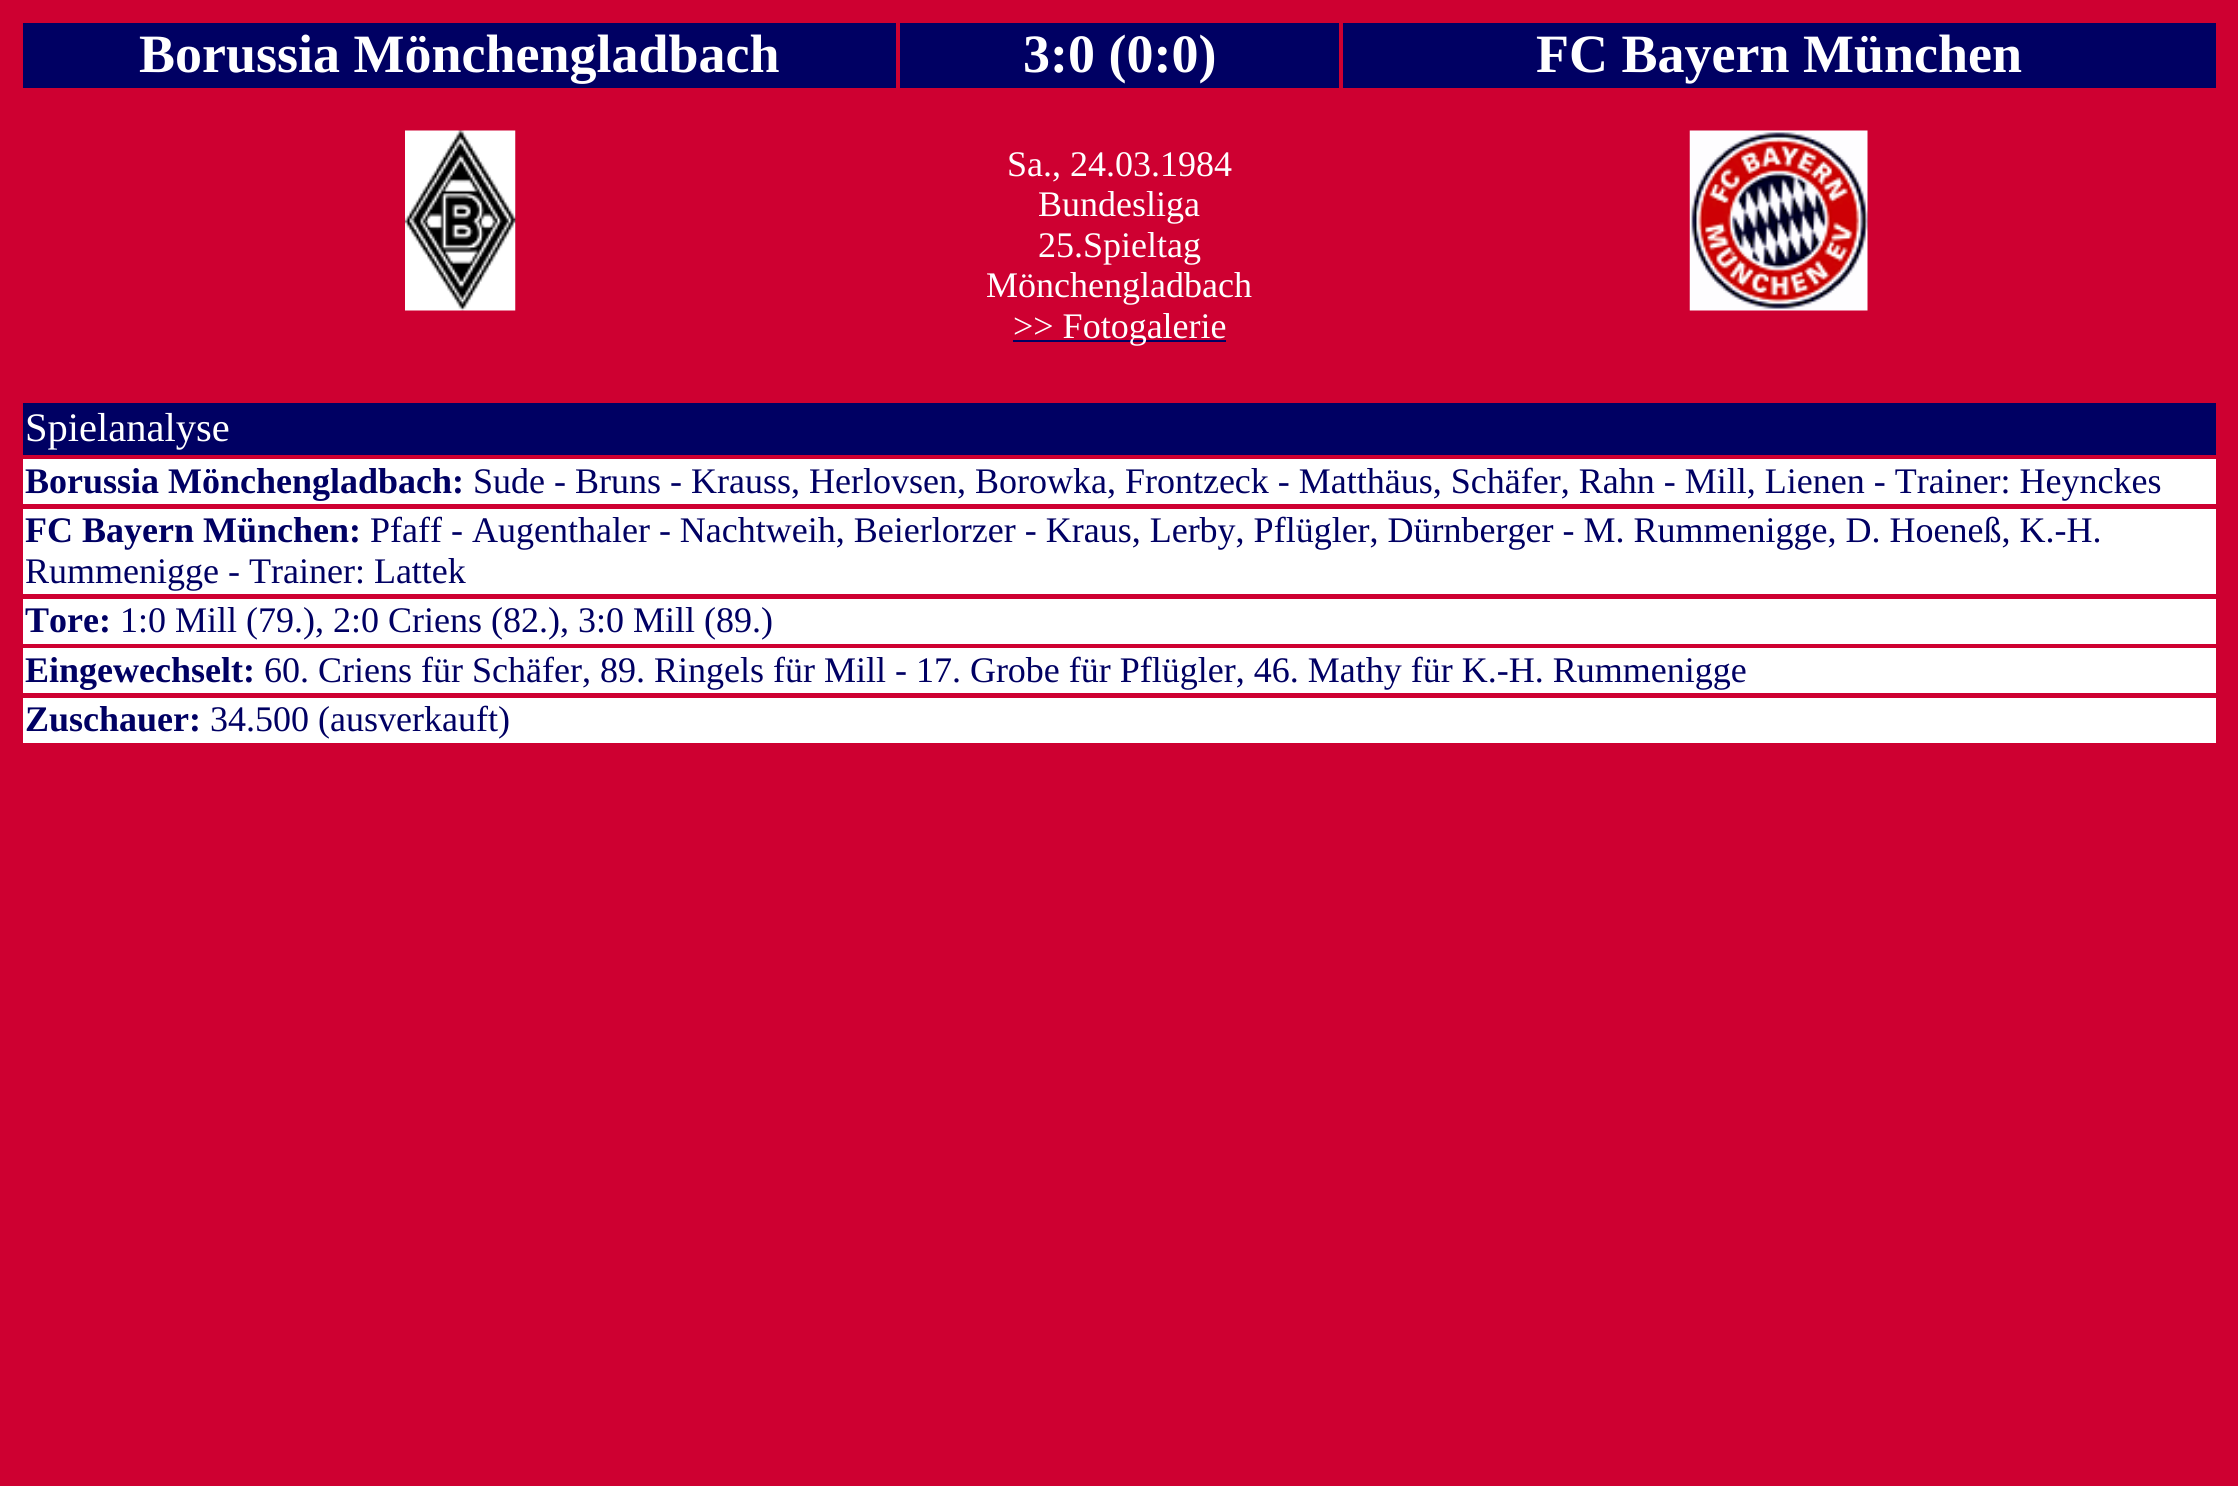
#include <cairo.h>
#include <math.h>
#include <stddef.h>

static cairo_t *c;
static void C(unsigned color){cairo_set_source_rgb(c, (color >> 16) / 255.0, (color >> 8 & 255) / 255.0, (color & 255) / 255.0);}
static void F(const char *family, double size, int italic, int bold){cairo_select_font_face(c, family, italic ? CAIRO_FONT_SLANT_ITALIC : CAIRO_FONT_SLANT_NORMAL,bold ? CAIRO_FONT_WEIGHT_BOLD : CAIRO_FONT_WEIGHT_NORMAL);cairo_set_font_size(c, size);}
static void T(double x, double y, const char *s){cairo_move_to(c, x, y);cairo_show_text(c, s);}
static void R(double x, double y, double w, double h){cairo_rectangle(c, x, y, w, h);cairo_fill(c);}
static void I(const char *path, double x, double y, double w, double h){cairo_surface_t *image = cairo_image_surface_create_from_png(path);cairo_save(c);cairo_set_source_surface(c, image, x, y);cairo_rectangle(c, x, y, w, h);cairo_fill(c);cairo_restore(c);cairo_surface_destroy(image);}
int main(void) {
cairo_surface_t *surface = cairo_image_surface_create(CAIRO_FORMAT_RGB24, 2238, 1486);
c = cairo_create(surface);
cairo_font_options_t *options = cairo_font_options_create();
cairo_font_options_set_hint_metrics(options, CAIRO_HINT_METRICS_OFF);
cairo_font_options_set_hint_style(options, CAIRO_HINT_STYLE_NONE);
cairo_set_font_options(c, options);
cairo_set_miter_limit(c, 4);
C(0xce0031);
cairo_paint(c);
C(0x000063);
R(23,23,873,65);
F("Liberation Serif",54,0,1);
C(0xffffff);
T(139,72,"Borussia Mönchengladbach");
C(0x000063);
R(900,23,439,65);
C(0xffffff);
T(1023,72,"3:0 (0:0)");
C(0x000063);
R(1343,23,873,65);
C(0xffffff);
T(1536,72,"FC Bayern München");
I("1.png",405,130,111,181);
I("2.png",1689,130,179,181);
F("Liberation Serif",36,0,0);
T(1007,176,"Sa., 24.03.1984");
T(1038,216,"Bundesliga");
T(1038,257,"25.Spieltag");
T(986,297,"Mönchengladbach");
C(0x000063);
R(1013,340,213,2);
C(0xffffff);
T(1013,338,">> Fotogalerie");
C(0x000063);
R(23,403,2193,52);
F("Liberation Serif",40.5,0,0);
C(0xffffff);
T(25,441,"Spielanalyse");
R(23,459,2193,45);
F("Liberation Serif",36,0,1);
C(0x000063);
T(25,493,"Borussia Mönchengladbach:");
F("Liberation Serif",36,0,0);
T(473,493,"Sude - Bruns - Krauss, Herlovsen, Borowka, Frontzeck - Matthäus, Schäfer, Rahn - Mill, Lienen - Trainer: Heynckes");
C(0xffffff);
R(23,509,2193,85);
F("Liberation Serif",36,0,1);
C(0x000063);
T(25,542,"FC Bayern München:");
F("Liberation Serif",36,0,0);
T(370,542,"Pfaff - Augenthaler - Nachtweih, Beierlorzer - Kraus, Lerby, Pflügler, Dürnberger - M. Rummenigge, D. Hoeneß, K.-H.");
T(25,583,"Rummenigge - Trainer: Lattek");
C(0xffffff);
R(23,599,2193,45);
F("Liberation Serif",36,0,1);
C(0x000063);
T(25,632,"Tore:");
F("Liberation Serif",36,0,0);
T(120,632,"1:0 Mill (79.), 2:0 Criens (82.), 3:0 Mill (89.)");
C(0xffffff);
R(23,648,2193,45);
F("Liberation Serif",36,0,1);
C(0x000063);
T(25,682,"Eingewechselt:");
F("Liberation Serif",36,0,0);
T(264,682,"60. Criens für Schäfer, 89. Ringels für Mill - 17. Grobe für Pflügler, 46. Mathy für K.-H. Rummenigge");
C(0xffffff);
R(23,698,2193,45);
F("Liberation Serif",36,0,1);
C(0x000063);
T(25,731,"Zuschauer:");
F("Liberation Serif",36,0,0);
T(210,731,"34.500 (ausverkauft)");
cairo_surface_write_to_png(surface, "o.png");
cairo_font_options_destroy(options);
cairo_destroy(c);
cairo_surface_destroy(surface);
return 0;
}
